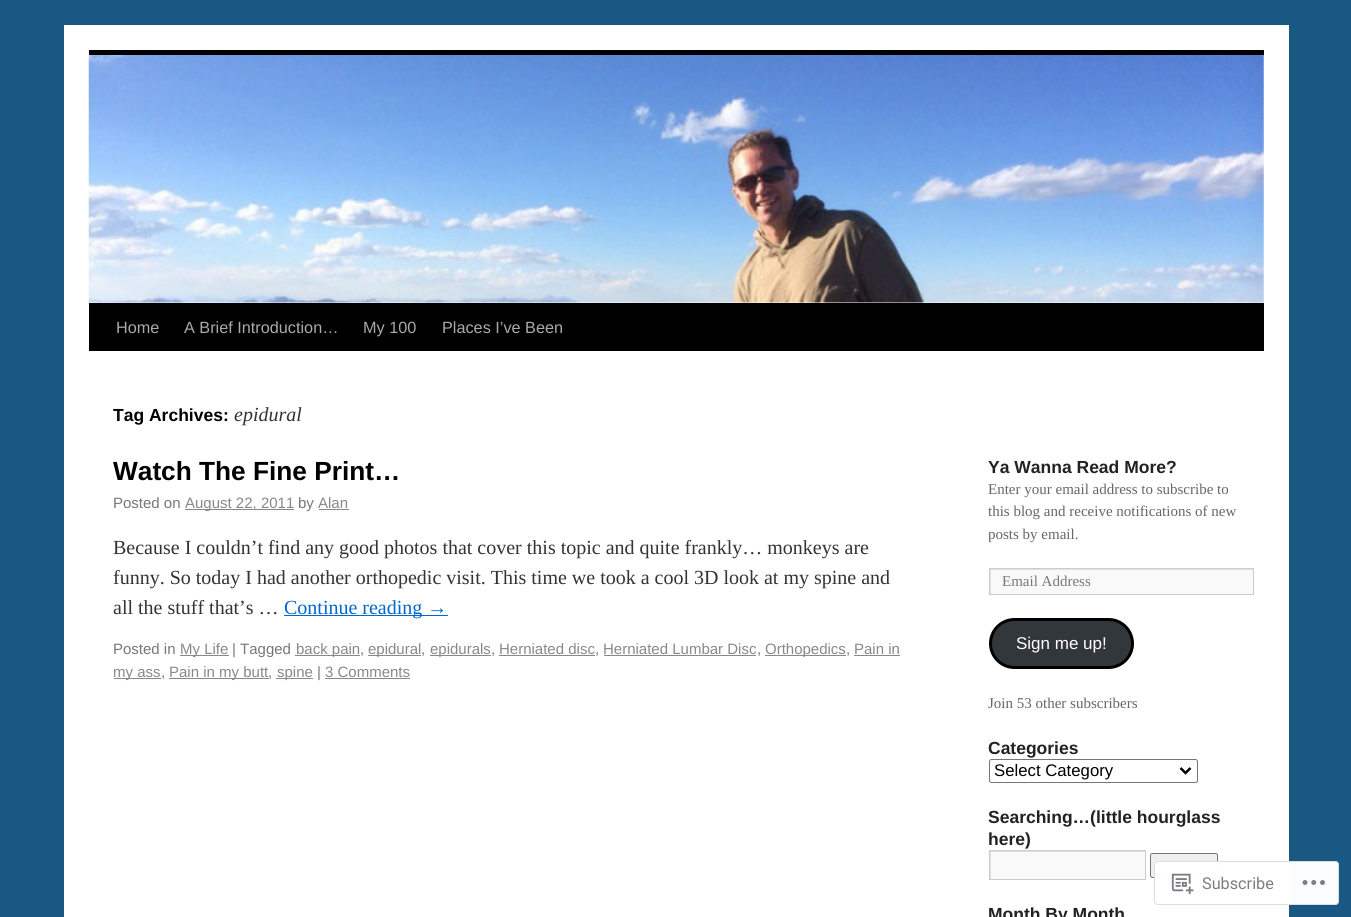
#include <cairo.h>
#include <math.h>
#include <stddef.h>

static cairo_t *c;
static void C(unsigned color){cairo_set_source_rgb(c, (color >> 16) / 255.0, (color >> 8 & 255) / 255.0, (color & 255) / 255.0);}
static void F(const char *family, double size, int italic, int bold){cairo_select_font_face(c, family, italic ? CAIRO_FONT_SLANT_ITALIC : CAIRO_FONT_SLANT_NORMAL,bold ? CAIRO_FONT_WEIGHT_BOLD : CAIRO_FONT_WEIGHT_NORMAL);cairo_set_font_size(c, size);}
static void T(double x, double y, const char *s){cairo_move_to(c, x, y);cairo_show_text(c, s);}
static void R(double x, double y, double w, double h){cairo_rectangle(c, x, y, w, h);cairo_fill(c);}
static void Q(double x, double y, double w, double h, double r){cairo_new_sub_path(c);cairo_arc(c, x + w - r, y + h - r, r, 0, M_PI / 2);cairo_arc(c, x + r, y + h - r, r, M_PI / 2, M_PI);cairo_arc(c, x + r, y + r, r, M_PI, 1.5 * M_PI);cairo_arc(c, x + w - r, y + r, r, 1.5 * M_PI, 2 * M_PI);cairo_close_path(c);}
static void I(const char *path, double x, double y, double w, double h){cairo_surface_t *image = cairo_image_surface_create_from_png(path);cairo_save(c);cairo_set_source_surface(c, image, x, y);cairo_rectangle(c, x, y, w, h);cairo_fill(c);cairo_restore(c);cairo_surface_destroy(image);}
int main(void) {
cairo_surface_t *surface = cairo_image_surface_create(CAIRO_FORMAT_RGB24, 1351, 917);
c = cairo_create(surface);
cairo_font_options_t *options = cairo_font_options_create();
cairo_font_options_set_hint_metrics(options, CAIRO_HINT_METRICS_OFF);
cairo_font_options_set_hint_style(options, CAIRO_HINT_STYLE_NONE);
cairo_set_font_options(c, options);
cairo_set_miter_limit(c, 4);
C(0x185882);
cairo_paint(c);
C(0xffffff);
R(64,25,1225,892);
C(0x000000);
R(89,50,1175,5);
R(89,303,1175,48);
I("1.png",88,55,1176,248);
F("Liberation Sans",16.25,0,0);
C(0xaaaaaa);
T(116,333,"Home");
T(184,333,"A Brief Introduction…");
T(363,333,"My 100");
T(442,333,"Places I’ve Been");
F("Liberation Sans",17.5,0,1);
C(0x000000);
T(113,421,"Tag Archives:");
F("Liberation Serif",20,1,0);
C(0x333333);
T(234,421,"epidural");
F("Liberation Sans",26.25,0,1);
C(0x000000);
T(113,480,"Watch The Fine Print…");
F("Liberation Sans",15,0,0);
C(0x777777);
T(113,508,"Posted on");
C(0x888888);
R(185,509,109,1);
T(185,508,"August 22, 2011");
C(0x777777);
T(298,508,"by");
C(0x888888);
T(318,508,"Alan");
R(319,509,30,1);
F("Liberation Serif",20,0,0);
C(0x333333);
T(113,554,"Because I couldn’t find any good photos that cover this topic and quite frankly… monkeys are");
T(113,584,"funny. So today I had another orthopedic visit. This time we took a cool 3D look at my spine and");
T(113,614,"all the stuff that’s …");
C(0x0066cc);
R(284,615,164,1);
T(284,614,"Continue reading →");
F("Liberation Sans",15,0,0);
C(0x777777);
T(113,654,"Posted in");
C(0x888888);
R(180,655,49,1);
T(180,654,"My Life");
C(0x777777);
T(232,654,"| Tagged");
C(0x888888);
R(295,655,65,1);
T(296,654,"back pain");
C(0x777777);
T(360,654,",");
C(0x888888);
R(368,655,53,1);
T(368,654,"epidural");
C(0x777777);
T(421,654,",");
C(0x888888);
R(430,655,61,1);
T(430,654,"epidurals");
C(0x777777);
T(491,654,",");
C(0x888888);
T(499,654,"Herniated disc");
C(0x777777);
T(595,654,",");
C(0x888888);
R(499,655,96,1);
T(603,654,"Herniated Lumbar Disc");
C(0x777777);
T(757,654,",");
C(0x888888);
R(604,655,152,1);
R(765,655,81,1);
T(765,654,"Orthopedics");
C(0x777777);
T(846,654,",");
C(0x888888);
R(854,655,46,1);
T(854,654,"Pain in");
R(114,678,47,1);
T(113,677,"my ass");
C(0x777777);
T(161,677,",");
C(0x888888);
R(169,678,100,1);
T(169,677,"Pain in my butt");
C(0x777777);
T(268,677,",");
C(0x888888);
R(276,678,37,1);
T(277,677,"spine");
C(0x777777);
T(317,677,"|");
C(0x888888);
T(325,677,"3 Comments");
R(325,678,85,1);
F("Liberation Sans",17.5,0,1);
C(0x222222);
T(988,473,"Ya Wanna Read More?");
F("Liberation Serif",15,0,0);
C(0x666666);
T(988,494,"Enter your email address to subscribe to");
T(988,516,"this blog and receive notifications of new");
cairo_save(c);
cairo_rectangle(c,989,401,275,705);
cairo_clip(c);
T(988,539,"posts by email.");
cairo_restore(c);
C(0xf9f9f9);
R(991,570,262,24);
cairo_save(c);
cairo_rectangle(c,990,569,263,25);
cairo_clip(c);
C(0xe0e0e0);
cairo_set_fill_rule(c,CAIRO_FILL_RULE_EVEN_ODD);
cairo_new_path(c);
cairo_move_to(c,866,445);
cairo_line_to(c,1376,445);
cairo_line_to(c,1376,718);
cairo_line_to(c,866,718);
cairo_close_path(c);
cairo_move_to(c,991,570);
cairo_line_to(c,1254,570);
cairo_line_to(c,1254,595);
cairo_line_to(c,991,595);
cairo_close_path(c);
cairo_fill(c);
cairo_restore(c);
cairo_rectangle(c,989.5,568.5,264,26);
C(0xcccccc);
cairo_set_line_width(c,1);
cairo_stroke(c);
C(0x777777);
T(1002,586,"Email Address");
C(0x32373c);
Q(990.5,619.5,142,48,24);
cairo_fill_preserve(c);
C(0x000000);
cairo_set_line_width(c,3);
cairo_stroke(c);
F("Liberation Sans",17,0,0);
C(0xffffff);
T(1016,649,"Sign me up!");
F("Liberation Serif",15,0,0);
C(0x666666);
T(988,708,"Join 53 other subscribers");
F("Liberation Sans",17.5,0,1);
C(0x222222);
T(988,754,"Categories");
Q(989.5,759.5,208,23,2);
C(0x767676);
cairo_set_line_width(c,1);
cairo_stroke(c);
cairo_new_path(c);
cairo_move_to(c,1180.5,768);
cairo_line_to(c,1185.5,773);
cairo_line_to(c,1190.5,768);
C(0x000000);
cairo_set_line_width(c,2.5);
cairo_stroke(c);
F("Liberation Sans",16.75,0,0);
T(994,776,"Select Category");
F("Liberation Sans",17.5,0,1);
C(0x222222);
T(988,823,"Searching…(little hourglass");
T(988,845,"here)");
C(0xf9f9f9);
R(991,852,154,27);
cairo_save(c);
cairo_rectangle(c,990,851,155,28);
cairo_clip(c);
C(0xe0e0e0);
cairo_set_fill_rule(c,CAIRO_FILL_RULE_EVEN_ODD);
cairo_new_path(c);
cairo_move_to(c,866,728);
cairo_line_to(c,1269,728);
cairo_line_to(c,1269,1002);
cairo_line_to(c,866,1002);
cairo_close_path(c);
cairo_move_to(c,991,852);
cairo_line_to(c,1146,852);
cairo_line_to(c,1146,880);
cairo_line_to(c,991,880);
cairo_close_path(c);
cairo_fill(c);
cairo_restore(c);
cairo_rectangle(c,989.5,850.5,156,29);
C(0xcccccc);
cairo_set_line_width(c,1);
cairo_stroke(c);
C(0xefefef);
Q(1150.5,853.5,67,24,2);
cairo_fill_preserve(c);
C(0x767676);
cairo_stroke(c);
C(0x222222);
T(988,920,"Month By Month");
cairo_set_source_rgba(c,1,1,1,0.98);
Q(1154,861,185,44,4);
cairo_fill(c);
Q(1154.5,861.5,184,43,3.5);
cairo_set_source_rgba(c,0.863,0.863,0.871,0.98);
cairo_stroke(c);
I("2.png",1171,873,23,22);
F("Roboto",16.25,0,0);
C(0x7b7f84);
T(1202,889,"Subscribe");
I("3.png",1302,880,23,5);
cairo_surface_write_to_png(surface, "o.png");
cairo_font_options_destroy(options);
cairo_destroy(c);
cairo_surface_destroy(surface);
return 0;
}
